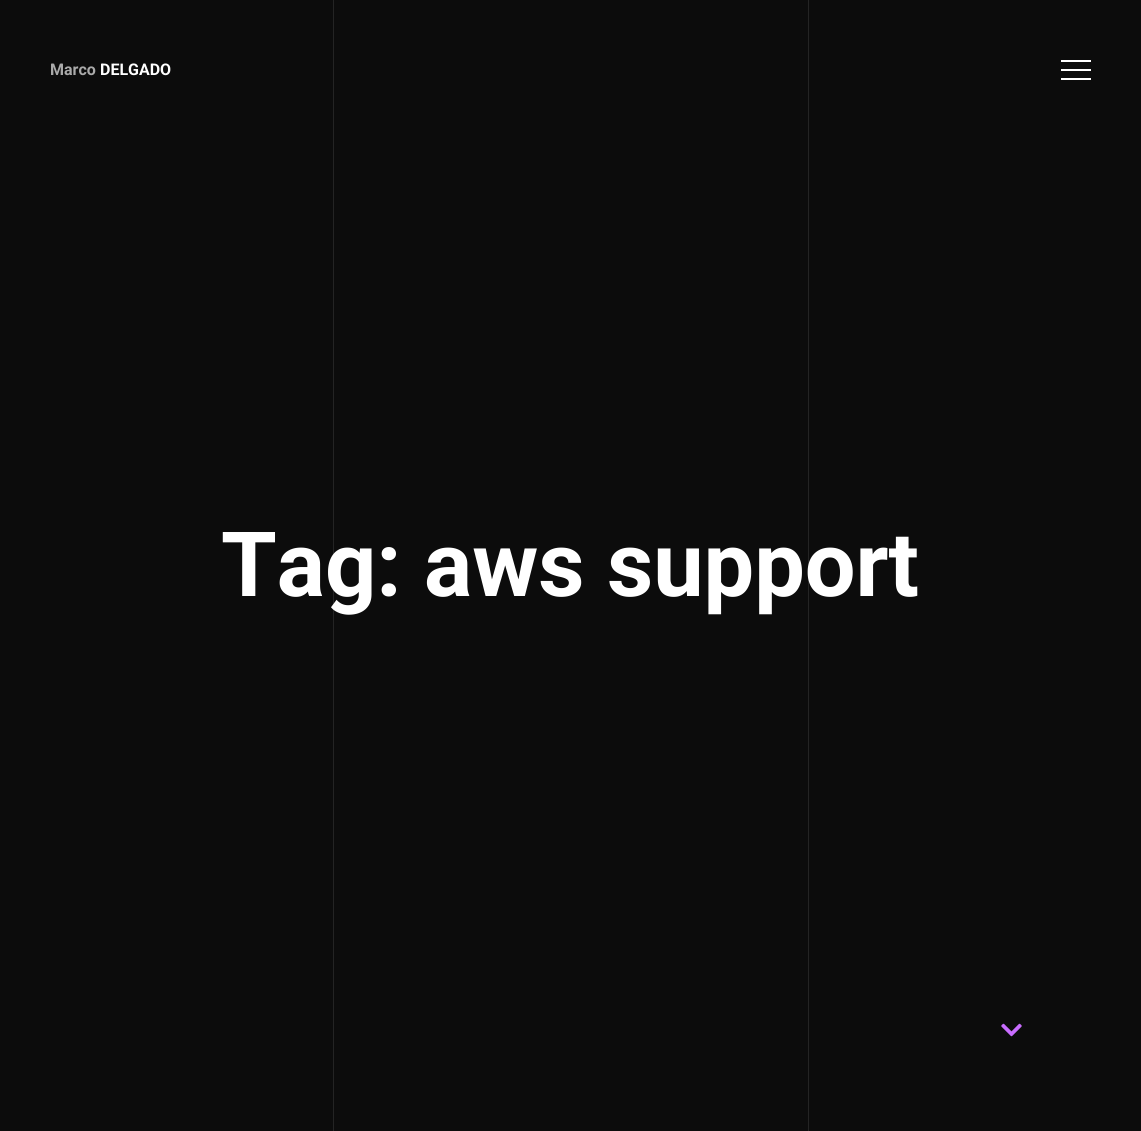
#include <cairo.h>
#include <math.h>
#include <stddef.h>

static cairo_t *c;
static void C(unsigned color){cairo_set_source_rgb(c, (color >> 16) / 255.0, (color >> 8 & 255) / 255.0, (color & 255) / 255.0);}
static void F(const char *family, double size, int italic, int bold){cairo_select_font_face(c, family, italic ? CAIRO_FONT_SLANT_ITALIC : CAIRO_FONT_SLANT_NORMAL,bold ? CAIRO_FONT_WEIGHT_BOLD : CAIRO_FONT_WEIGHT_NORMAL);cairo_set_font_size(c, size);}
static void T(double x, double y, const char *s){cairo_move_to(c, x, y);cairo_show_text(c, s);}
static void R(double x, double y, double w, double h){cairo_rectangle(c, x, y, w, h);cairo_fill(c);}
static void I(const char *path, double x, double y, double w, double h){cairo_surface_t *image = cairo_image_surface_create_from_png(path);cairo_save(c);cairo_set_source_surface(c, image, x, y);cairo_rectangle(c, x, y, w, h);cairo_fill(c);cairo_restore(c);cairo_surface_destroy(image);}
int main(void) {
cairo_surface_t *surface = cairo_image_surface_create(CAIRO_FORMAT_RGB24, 1141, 1131);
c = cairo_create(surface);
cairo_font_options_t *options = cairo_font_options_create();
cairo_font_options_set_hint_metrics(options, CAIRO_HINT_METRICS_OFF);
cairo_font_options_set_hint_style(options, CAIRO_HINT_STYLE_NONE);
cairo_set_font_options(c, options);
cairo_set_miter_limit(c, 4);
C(0x0c0c0c);
cairo_paint(c);
F("Roboto",16,0,1);
C(0xaaaaaa);
T(50,75,"Marco");
C(0xffffff);
T(100,75,"DELGADO");
R(1061,60,30,2);
R(1061,69,30,2);
R(1061,78,30,2);
cairo_set_source_rgba(c,1,1,1,0.1);
R(333,0,1,1131);
R(808,0,1,1131);
F("Roboto",90,0,1);
C(0xffffff);
T(221,596,"Tag: aws support");
I("1.png",1001,1023,21,14);
cairo_surface_write_to_png(surface, "o.png");
cairo_font_options_destroy(options);
cairo_destroy(c);
cairo_surface_destroy(surface);
return 0;
}
